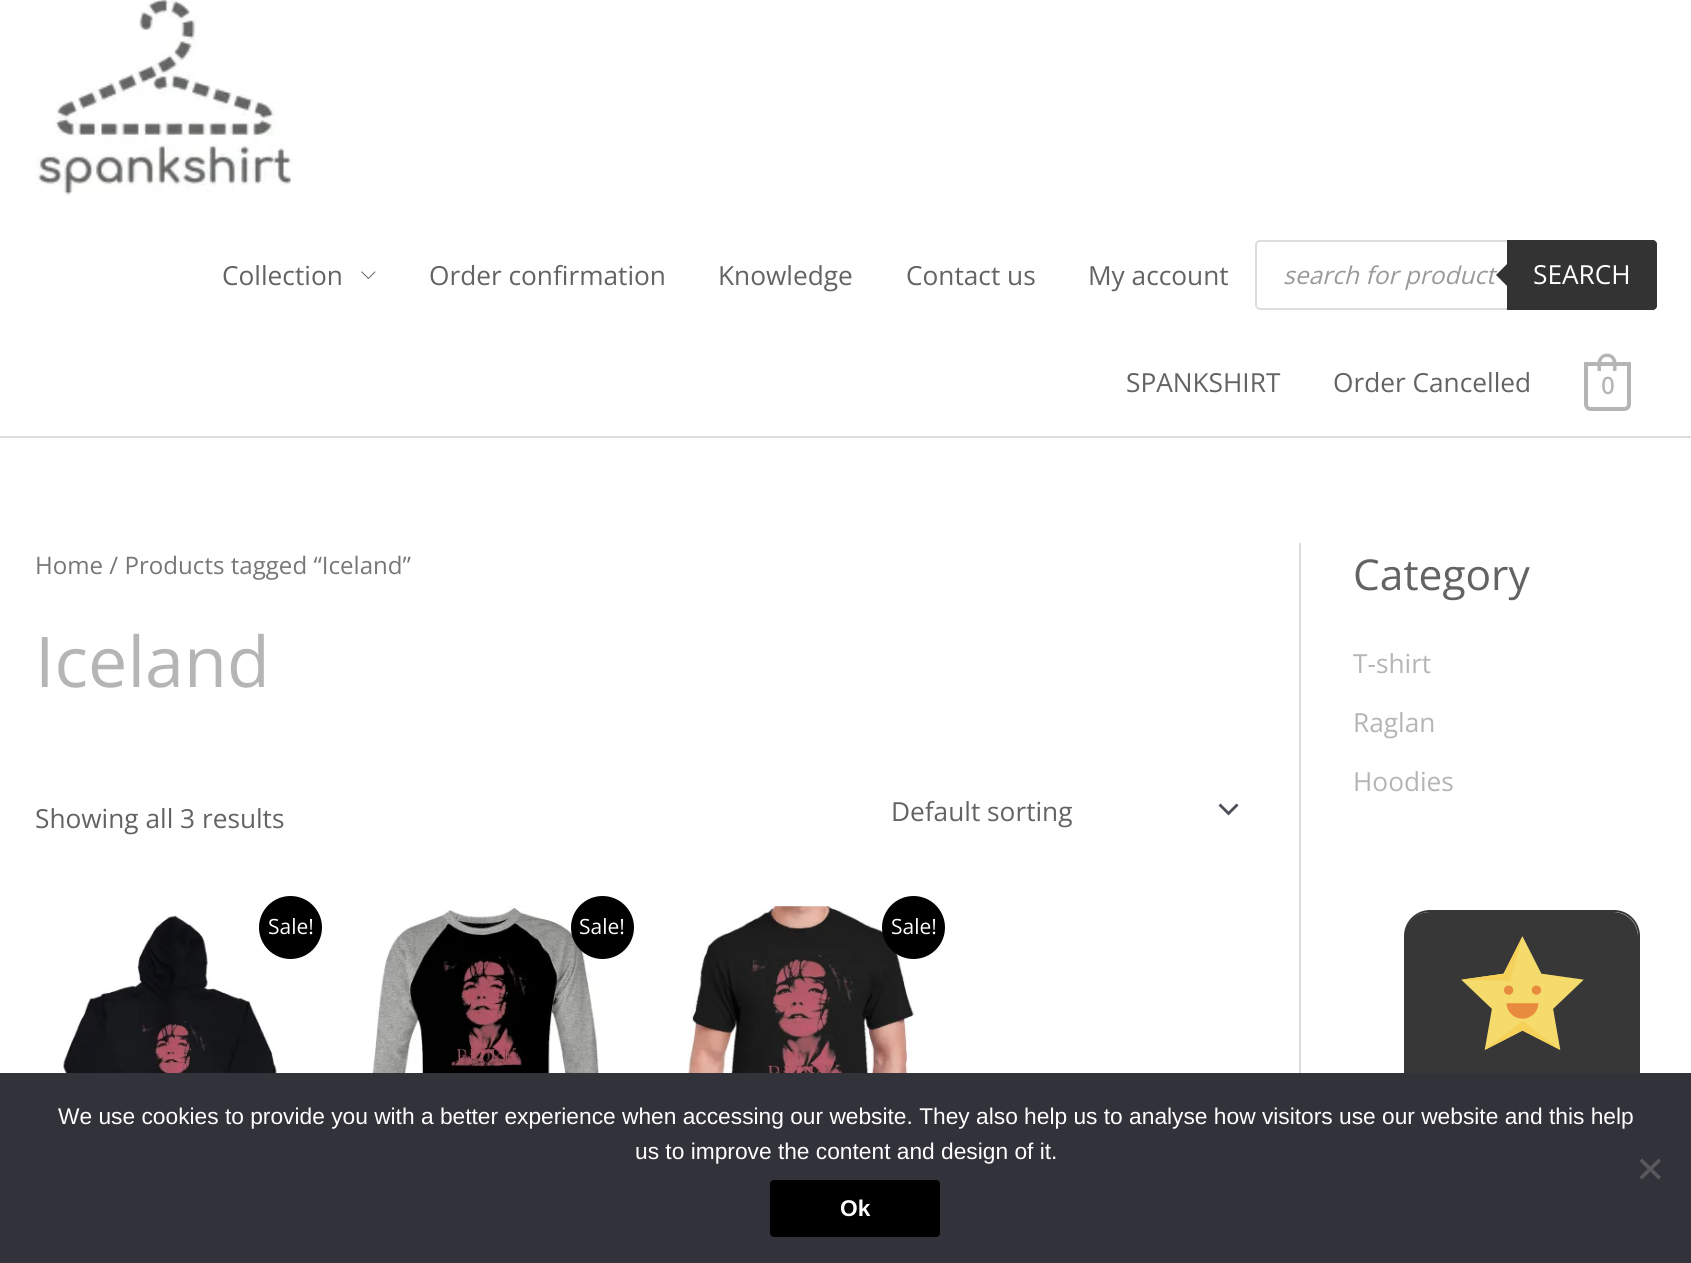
#include <cairo.h>
#include <math.h>
#include <stddef.h>

static cairo_t *c;
static void C(unsigned color){cairo_set_source_rgb(c, (color >> 16) / 255.0, (color >> 8 & 255) / 255.0, (color & 255) / 255.0);}
static void F(const char *family, double size, int italic, int bold){cairo_select_font_face(c, family, italic ? CAIRO_FONT_SLANT_ITALIC : CAIRO_FONT_SLANT_NORMAL,bold ? CAIRO_FONT_WEIGHT_BOLD : CAIRO_FONT_WEIGHT_NORMAL);cairo_set_font_size(c, size);}
static void T(double x, double y, const char *s){cairo_move_to(c, x, y);cairo_show_text(c, s);}
static void R(double x, double y, double w, double h){cairo_rectangle(c, x, y, w, h);cairo_fill(c);}
static void Q(double x, double y, double w, double h, double r){cairo_new_sub_path(c);cairo_arc(c, x + w - r, y + h - r, r, 0, M_PI / 2);cairo_arc(c, x + r, y + h - r, r, M_PI / 2, M_PI);cairo_arc(c, x + r, y + r, r, M_PI, 1.5 * M_PI);cairo_arc(c, x + w - r, y + r, r, 1.5 * M_PI, 2 * M_PI);cairo_close_path(c);}
static void I(const char *path, double x, double y, double w, double h){cairo_surface_t *image = cairo_image_surface_create_from_png(path);cairo_save(c);cairo_set_source_surface(c, image, x, y);cairo_rectangle(c, x, y, w, h);cairo_fill(c);cairo_restore(c);cairo_surface_destroy(image);}
int main(void) {
cairo_surface_t *surface = cairo_image_surface_create(CAIRO_FORMAT_RGB24, 1691, 1263);
c = cairo_create(surface);
cairo_font_options_t *options = cairo_font_options_create();
cairo_font_options_set_hint_metrics(options, CAIRO_HINT_METRICS_OFF);
cairo_font_options_set_hint_style(options, CAIRO_HINT_STYLE_NONE);
cairo_set_font_options(c, options);
cairo_set_miter_limit(c, 4);
C(0xffffff);
cairo_paint(c);
C(0xdddddd);
R(0,436,1691,2);
I("1.png",35,0,259,196);
F("Open Sans",26.25,0,0);
C(0x636363);
T(222,285,"Collection");
I("2.png",361,271,15,8);
T(429,285,"Order confirmation");
T(718,285,"Knowledge");
T(906,285,"Contact us");
T(1088,285,"My account");
Q(1256,241,400,68,4);
C(0xdddddd);
cairo_stroke(c);
F("Open Sans",24.5,1,0);
C(0x999999);
T(1283,284,"search for product");
C(0x333333);
cairo_new_path(c);
cairo_move_to(c,1507,240);
cairo_line_to(c,1653,240);
cairo_curve_to(c,1655,240,1657,242,1657,244);
cairo_line_to(c,1657,306);
cairo_curve_to(c,1657,308,1655,310,1653,310);
cairo_line_to(c,1507,310);
cairo_close_path(c);
cairo_fill(c);
cairo_new_path(c);
cairo_move_to(c,1510,261);
cairo_line_to(c,1510,289);
cairo_line_to(c,1496,275);
cairo_close_path(c);
cairo_fill(c);
F("Open Sans",26.25,0,0);
C(0xffffff);
T(1533,284,"SEARCH");
C(0x636363);
T(1126,392,"SPANKSHIRT");
T(1333,392,"Order Cancelled");
cairo_new_path(c);
cairo_move_to(c,1586,364);
cairo_line_to(c,1629,364);
cairo_line_to(c,1629,404);
cairo_curve_to(c,1629,407,1627,409,1624,409);
cairo_line_to(c,1591,409);
cairo_curve_to(c,1588,409,1586,407,1586,404);
cairo_close_path(c);
C(0xb5b5b5);
cairo_set_line_width(c,4);
cairo_stroke(c);
cairo_set_fill_rule(c,CAIRO_FILL_RULE_EVEN_ODD);
cairo_new_path(c);
cairo_move_to(c,1607,353.5);
cairo_curve_to(c,1612.5,353.5,1616.5,358,1616.5,363);
cairo_line_to(c,1616.5,371);
cairo_line_to(c,1597.5,371);
cairo_line_to(c,1597.5,363);
cairo_curve_to(c,1597.5,358,1602,353.5,1607,353.5);
cairo_close_path(c);
cairo_move_to(c,1607,357);
cairo_curve_to(c,1614.5,357,1613,366,1613,371);
cairo_line_to(c,1601,371);
cairo_curve_to(c,1601,366,1599.5,357,1607,357);
cairo_close_path(c);
cairo_fill(c);
F("Open Sans",23,0,1);
T(1601,394,"0");
C(0xdddddd);
R(1299,543,2,530);
F("Open Sans",24.1,0,0);
C(0x777777);
T(35,574,"Home / Products tagged “Iceland”");
F("Open Sans",70,0,0);
C(0xb5b5b5);
T(35,687,"Iceland");
F("Open Sans",26.25,0,0);
C(0x636363);
T(35,828,"Showing all 3 results");
C(0x4b4f58);
cairo_set_fill_rule(c,CAIRO_FILL_RULE_WINDING);
cairo_new_path(c);
cairo_move_to(c,1218.5,805.5);
cairo_line_to(c,1228.5,815.5);
cairo_line_to(c,1238.5,805.5);
cairo_line_to(c,1236.5,803.5);
cairo_line_to(c,1228.5,811.5);
cairo_line_to(c,1220.5,803.5);
cairo_close_path(c);
cairo_fill(c);
C(0x636363);
T(891,821,"Default sorting");
I("3.png",62,915,216,158);
C(0x000000);
cairo_arc(c,290.5,927.5,31.5,0,2 * M_PI);
cairo_fill(c);
F("Open Sans",21,0,0);
C(0xffffff);
T(268,934,"Sale!");
I("4.png",369,906,232,167);
C(0x000000);
cairo_arc(c,602.5,927.5,31.5,0,2 * M_PI);
cairo_fill(c);
C(0xffffff);
T(579,934,"Sale!");
I("5.png",686,906,229,167);
C(0x000000);
cairo_arc(c,913.5,927.5,31.5,0,2 * M_PI);
cairo_fill(c);
C(0xffffff);
T(891,934,"Sale!");
F("Open Sans",42.5,0,0);
C(0x636363);
T(1353,590,"Category");
F("Open Sans",26.25,0,0);
C(0xb5b5b5);
T(1353,673,"T-shirt");
T(1353,732,"Raglan");
T(1353,791,"Hoodies");
Q(1405,911,234,299,25);
C(0x373737);
cairo_set_line_width(c,2);
cairo_stroke(c);
cairo_new_path(c);
cairo_move_to(c,1430,912);
cairo_line_to(c,1613,912);
cairo_curve_to(c,1627,912,1638,923,1638,937);
cairo_line_to(c,1638,1113);
cairo_line_to(c,1405,1113);
cairo_line_to(c,1405,937);
cairo_curve_to(c,1405,923,1416,912,1430,912);
cairo_close_path(c);
cairo_fill(c);
I("6.png",1461,936,123,114);
C(0x32323a);
R(0,1073,1691,190);
F("Liberation Sans",22.75,0,0);
C(0xffffff);
T(58,1124,"We use cookies to provide you with a better experience when accessing our website. They also help us to analyse how visitors use our website and this help");
T(635,1159,"us to improve the content and design of it.");
C(0x59595d);
cairo_new_path(c);
cairo_move_to(c,1658.5,1158.5);
cairo_line_to(c,1661,1161);
cairo_line_to(c,1642,1179.5);
cairo_line_to(c,1639.5,1177);
cairo_close_path(c);
cairo_fill(c);
cairo_new_path(c);
cairo_move_to(c,1639.5,1161);
cairo_line_to(c,1642,1158.5);
cairo_line_to(c,1661,1177);
cairo_line_to(c,1658.5,1179.5);
cairo_close_path(c);
cairo_fill(c);
C(0x000000);
Q(770,1180,170,57,4);
cairo_fill(c);
F("Liberation Sans",22.75,0,1);
C(0xffffff);
T(840,1216,"Ok");
cairo_surface_write_to_png(surface, "o.png");
cairo_font_options_destroy(options);
cairo_destroy(c);
cairo_surface_destroy(surface);
return 0;
}
